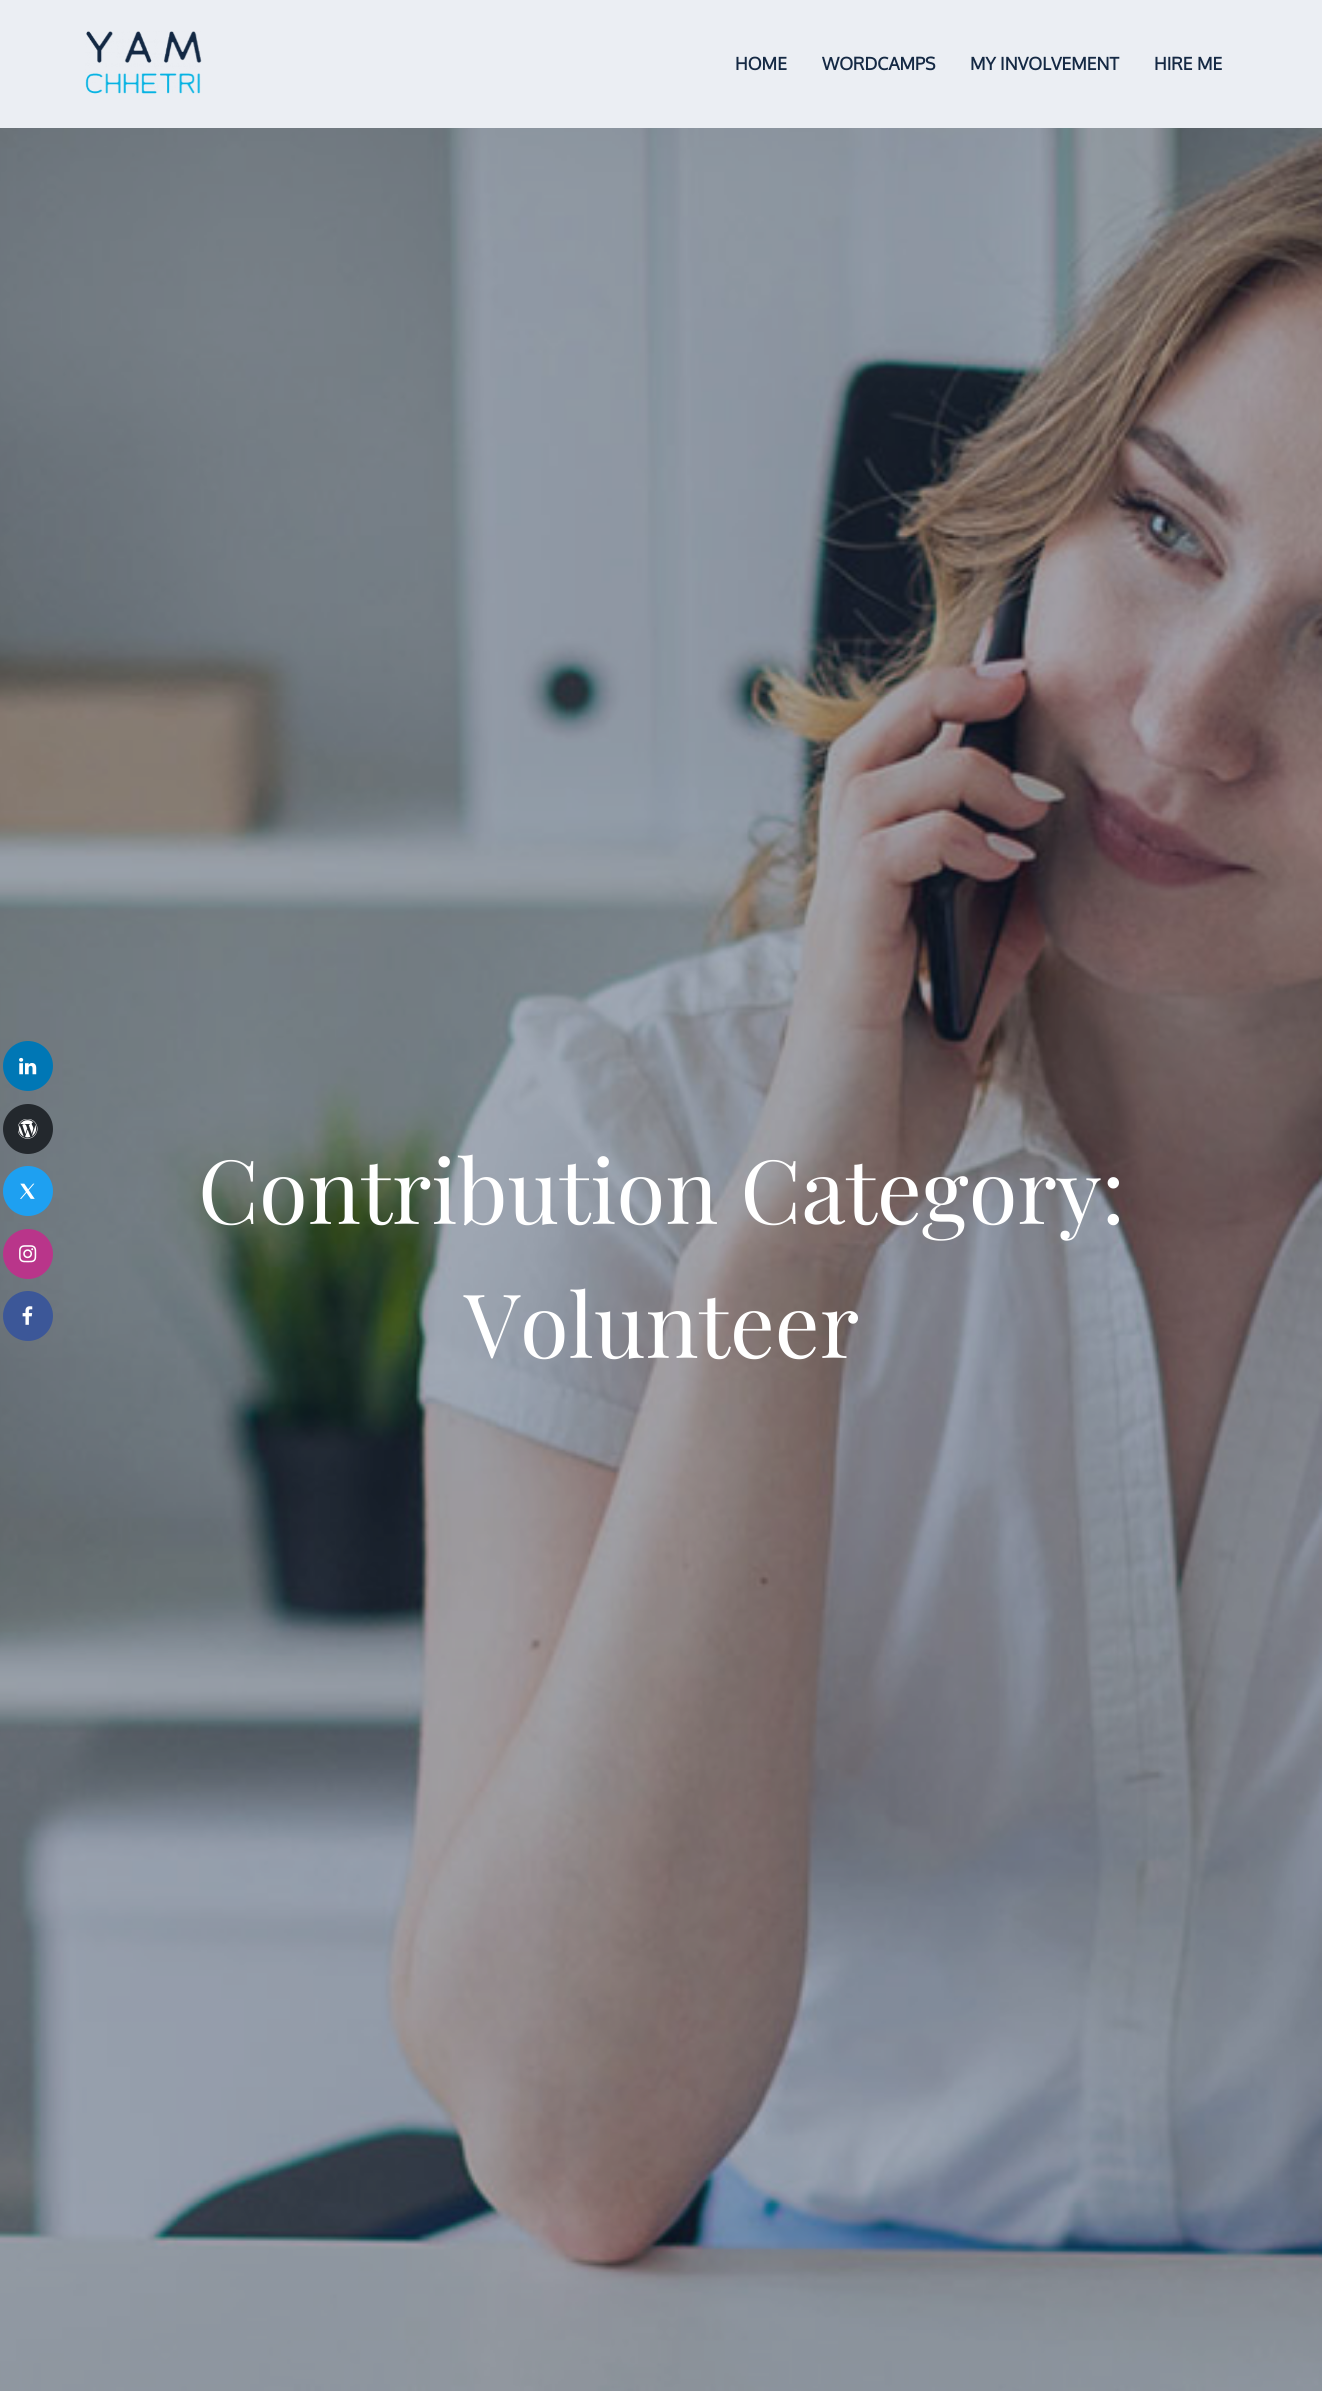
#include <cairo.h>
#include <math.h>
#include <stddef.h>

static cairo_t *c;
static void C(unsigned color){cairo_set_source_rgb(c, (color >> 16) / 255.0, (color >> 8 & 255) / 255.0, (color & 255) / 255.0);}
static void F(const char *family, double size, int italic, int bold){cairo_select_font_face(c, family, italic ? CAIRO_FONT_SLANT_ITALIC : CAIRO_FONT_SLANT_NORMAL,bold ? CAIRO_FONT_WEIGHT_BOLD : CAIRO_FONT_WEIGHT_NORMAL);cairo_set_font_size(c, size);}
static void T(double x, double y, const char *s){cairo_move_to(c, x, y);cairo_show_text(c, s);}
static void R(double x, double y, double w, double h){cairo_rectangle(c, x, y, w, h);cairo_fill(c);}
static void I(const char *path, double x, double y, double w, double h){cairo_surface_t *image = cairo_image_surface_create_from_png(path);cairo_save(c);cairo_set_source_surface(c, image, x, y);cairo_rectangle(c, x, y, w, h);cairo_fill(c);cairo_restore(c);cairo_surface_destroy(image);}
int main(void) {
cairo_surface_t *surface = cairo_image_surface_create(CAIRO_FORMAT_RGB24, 1322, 2391);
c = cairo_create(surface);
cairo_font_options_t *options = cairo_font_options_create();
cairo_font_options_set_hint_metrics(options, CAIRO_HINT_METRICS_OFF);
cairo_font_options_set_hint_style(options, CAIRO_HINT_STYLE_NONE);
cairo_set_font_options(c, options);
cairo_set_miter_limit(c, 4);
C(0xffffff);
cairo_paint(c);
C(0xebeef3);
R(0,0,1322,128);
I("1.png",85,31,117,63);
F("Oxygen",17.5,0,1);
C(0x152944);
T(735,70,"HOME");
T(822,70,"WORDCAMPS");
T(970,70,"MY INVOLVEMENT");
T(1154,70,"HIRE ME");
I("7.png",0,128,1322,2263);
C(0x0077b5);
cairo_arc(c,28,1066,23.5,0,2 * M_PI);
cairo_fill_preserve(c);
cairo_set_line_width(c,3);
cairo_stroke(c);
I("2.png",19,1057,18,18);
C(0x23282d);
cairo_arc(c,28,1129,23.5,0,2 * M_PI);
cairo_fill_preserve(c);
cairo_stroke(c);
I("3.png",18,1119,20,20);
C(0x1ea0f1);
cairo_arc(c,28,1191,23.5,0,2 * M_PI);
cairo_fill_preserve(c);
cairo_stroke(c);
I("4.png",20,1183,15,16);
C(0xb9358a);
cairo_arc(c,28,1254,23.5,0,2 * M_PI);
cairo_fill_preserve(c);
cairo_stroke(c);
I("5.png",19,1245,18,18);
C(0x3c5798);
cairo_arc(c,28,1316,23.5,0,2 * M_PI);
cairo_fill_preserve(c);
cairo_stroke(c);
I("6.png",22,1306,11,19);
F("Playfair Display",88.75,0,0);
C(0xffffff);
T(198,1224,"Contribution Category:");
T(464,1358,"Volunteer");
cairo_surface_write_to_png(surface, "o.png");
cairo_font_options_destroy(options);
cairo_destroy(c);
cairo_surface_destroy(surface);
return 0;
}
